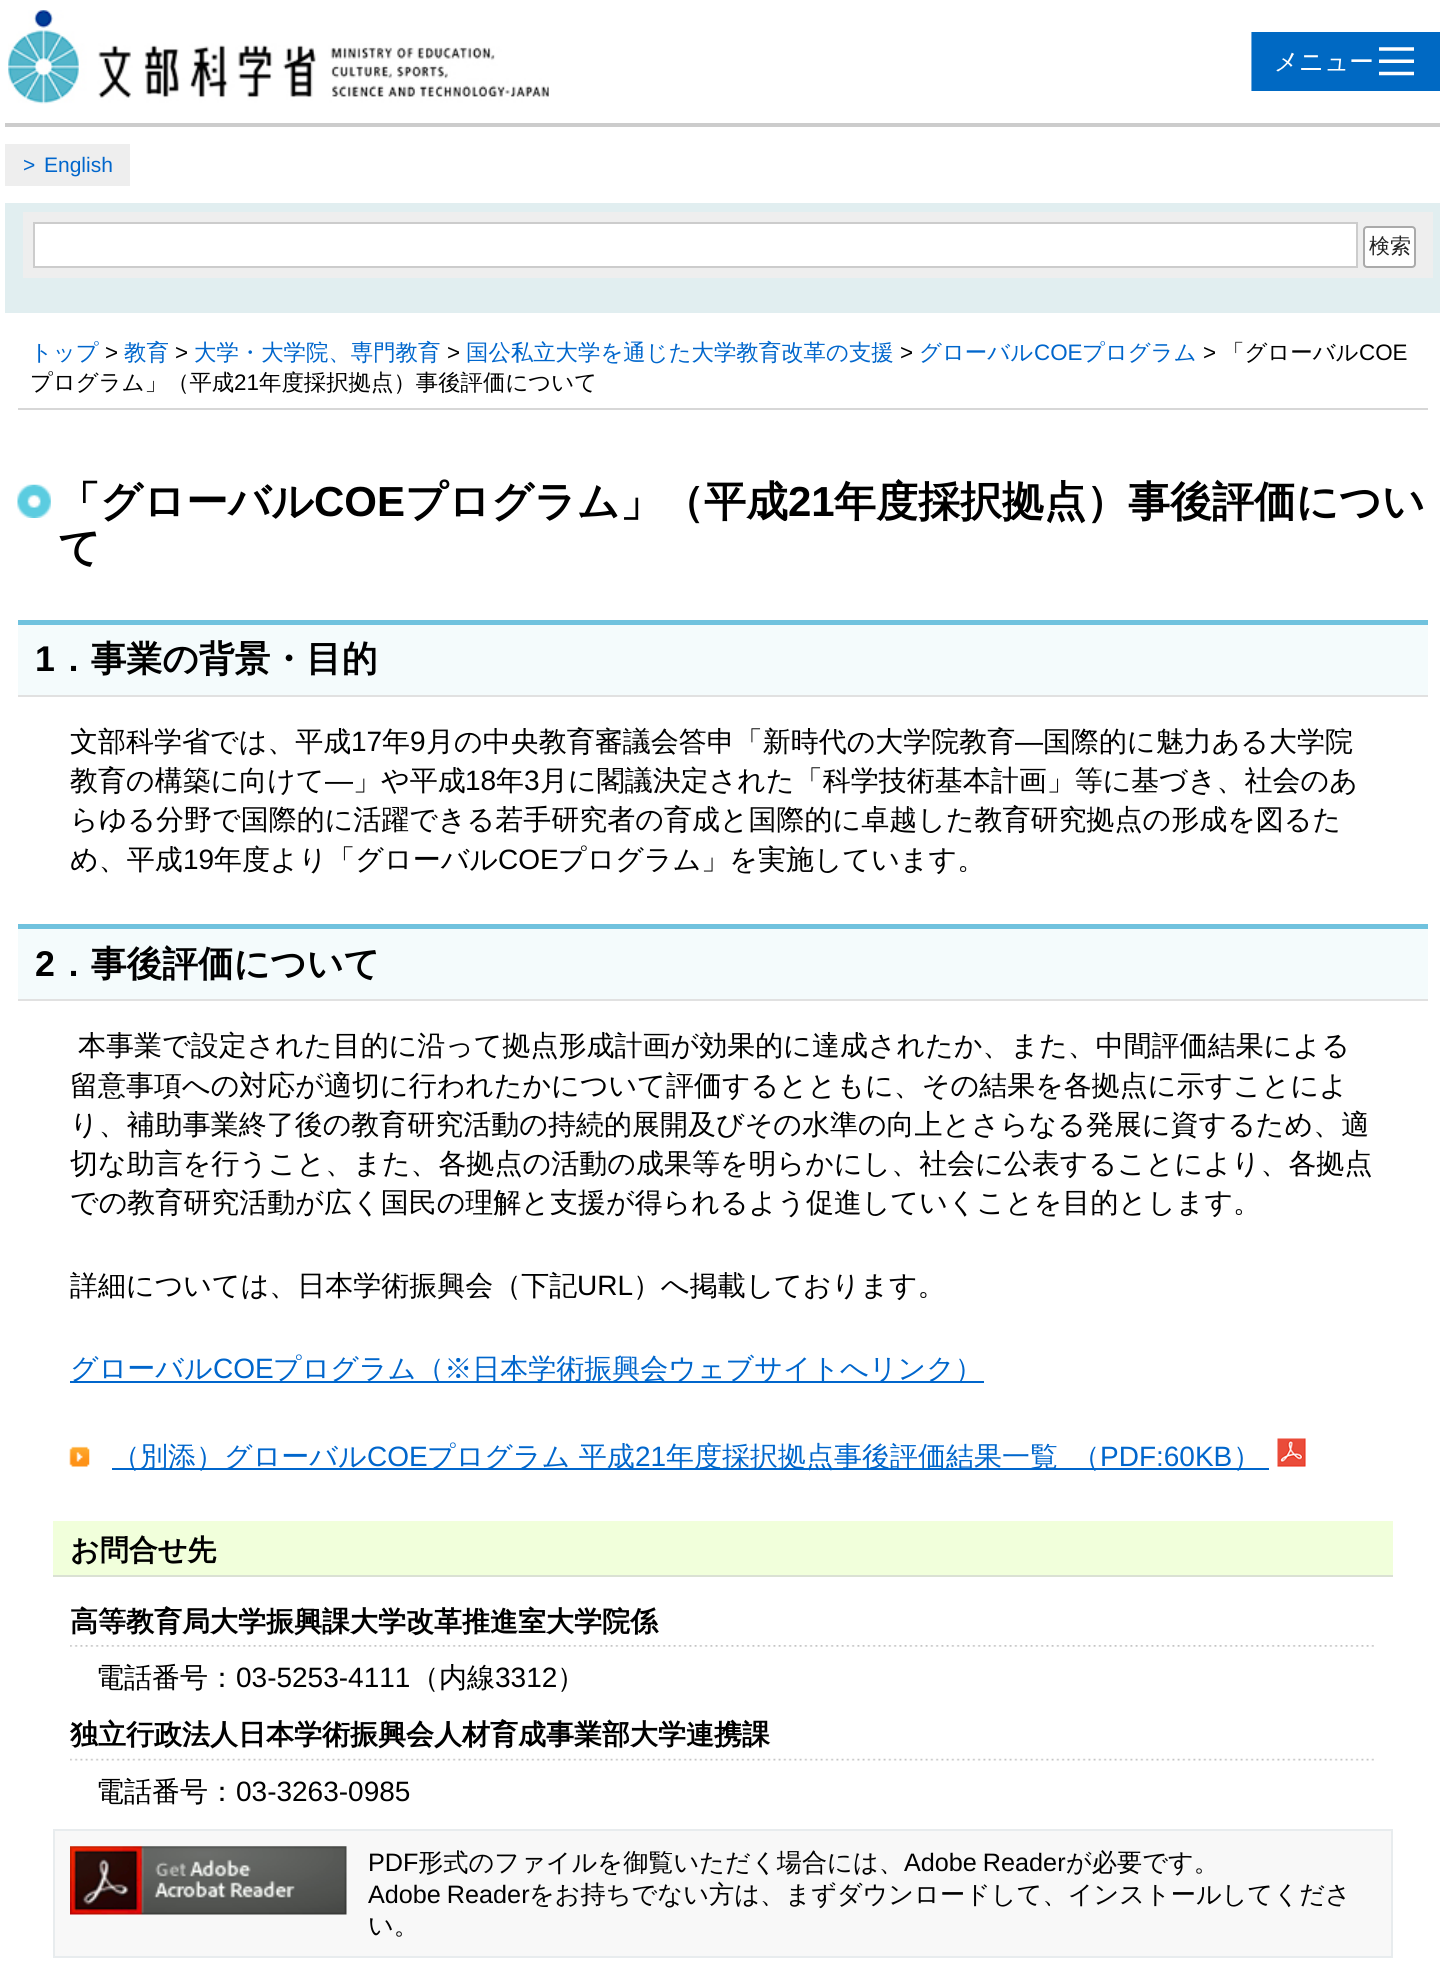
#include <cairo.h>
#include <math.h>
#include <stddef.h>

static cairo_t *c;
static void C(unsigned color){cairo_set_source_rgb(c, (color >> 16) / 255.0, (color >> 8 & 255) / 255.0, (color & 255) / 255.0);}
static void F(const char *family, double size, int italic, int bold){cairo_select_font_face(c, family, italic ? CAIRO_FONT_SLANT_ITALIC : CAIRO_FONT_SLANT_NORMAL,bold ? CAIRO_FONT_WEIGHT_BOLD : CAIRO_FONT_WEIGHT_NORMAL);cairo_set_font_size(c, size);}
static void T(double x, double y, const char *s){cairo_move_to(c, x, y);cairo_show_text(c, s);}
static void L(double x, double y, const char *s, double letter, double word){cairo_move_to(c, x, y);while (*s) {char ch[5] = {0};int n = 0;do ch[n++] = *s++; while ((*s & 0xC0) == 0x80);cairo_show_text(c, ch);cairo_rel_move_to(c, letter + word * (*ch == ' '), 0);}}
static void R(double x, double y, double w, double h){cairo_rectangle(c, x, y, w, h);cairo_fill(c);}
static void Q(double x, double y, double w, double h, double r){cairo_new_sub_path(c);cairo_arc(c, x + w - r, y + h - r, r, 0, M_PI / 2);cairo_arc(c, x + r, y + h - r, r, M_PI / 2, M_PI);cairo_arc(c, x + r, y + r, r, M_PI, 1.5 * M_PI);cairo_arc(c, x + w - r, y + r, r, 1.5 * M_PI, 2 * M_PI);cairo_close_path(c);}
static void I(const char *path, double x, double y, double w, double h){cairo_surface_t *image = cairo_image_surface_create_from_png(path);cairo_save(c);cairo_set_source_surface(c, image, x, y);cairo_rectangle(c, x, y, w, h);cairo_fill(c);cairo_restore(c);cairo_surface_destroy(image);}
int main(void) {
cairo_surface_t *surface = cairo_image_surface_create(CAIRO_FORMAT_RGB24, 1444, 1984);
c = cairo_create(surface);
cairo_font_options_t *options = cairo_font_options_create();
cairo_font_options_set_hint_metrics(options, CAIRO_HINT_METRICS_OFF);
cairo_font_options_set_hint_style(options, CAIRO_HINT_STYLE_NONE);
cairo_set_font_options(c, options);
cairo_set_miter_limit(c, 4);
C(0xffffff);
cairo_paint(c);
I("1.png",8,10,541,94);
I("2.png",1251,32,189,59);
C(0xcccccc);
R(5,123,1435,4);
C(0xeeeeee);
R(5,144,125,42);
F("Liberation Sans",21,0,0);
C(0x0066cc);
T(23,172,">");
T(44,172,"English");
C(0xe1eef0);
R(5,203,1435,110);
C(0xeeeeee);
R(23,212,1410,66);
C(0xffffff);
cairo_rectangle(c,34,223,1323,44);
cairo_fill_preserve(c);
C(0xcccccc);
cairo_stroke(c);
C(0xfefefe);
Q(1364,227,51,40,3);
cairo_fill_preserve(c);
C(0xaaaaaa);
cairo_stroke(c);
F("WenQuanYi Zen Hei Medium",21,0,0);
C(0x222222);
T(1369,253,"検索");
C(0xd7d7d7);
R(18,408,1410,2);
F("WenQuanYi Zen Hei Medium",22.4,0,0);
C(0x0066cc);
T(30,360,"トップ");
F("Liberation Sans",22.4,0,0);
C(0x000000);
T(105,360,">");
F("WenQuanYi Zen Hei Medium",22.4,0,0);
C(0x0066cc);
T(124,360,"教育");
F("Liberation Sans",22.4,0,0);
C(0x000000);
T(175,360,">");
F("WenQuanYi Zen Hei Medium",22.4,0,0);
C(0x0066cc);
T(194,360,"大学・大学院、専門教育");
F("Liberation Sans",22.4,0,0);
C(0x000000);
T(447,360,">");
F("WenQuanYi Zen Hei Medium",22.4,0,0);
C(0x0066cc);
T(466,360,"国公私立大学を通じた大学教育改革の支援");
F("Liberation Sans",22.4,0,0);
C(0x000000);
T(900,360,">");
F("WenQuanYi Zen Hei Medium",22.4,0,0);
C(0x0066cc);
T(919,360,"グローバル");
F("Liberation Sans",22.4,0,0);
T(1034,360,"COE");
F("WenQuanYi Zen Hei Medium",22.4,0,0);
T(1082,360,"プログラム");
F("Liberation Sans",22.4,0,0);
C(0x000000);
T(1203,360,">");
F("WenQuanYi Zen Hei Medium",22.4,0,0);
T(1222,360,"「グローバル");
F("Liberation Sans",22.4,0,0);
T(1359,360,"COE");
F("WenQuanYi Zen Hei Medium",22.4,0,0);
T(30,390,"プログラム」（平成");
F("Liberation Sans",22.4,0,0);
T(234,390,"21");
F("WenQuanYi Zen Hei Medium",22.4,0,0);
T(259,390,"年度採択拠点）事後評価について");
I("3.png",17,484,34,34);
F("WenQuanYi Zen Hei",42,0,1);
T(58,516,"「グローバル");
F("Liberation Sans",42,0,1);
T(314,516,"COE");
F("WenQuanYi Zen Hei",42,0,1);
T(405,516,"プログラム」（平成");
F("Liberation Sans",42,0,1);
T(788,516,"21");
F("WenQuanYi Zen Hei",42,0,1);
T(834,516,"年度採択拠点）事後評価につい");
T(58,562,"て");
C(0xf4fbfc);
R(18,625,1410,70);
C(0x70c2de);
R(18,620,1410,5);
C(0xe1e1e1);
R(18,695,1410,2);
F("Liberation Sans",35.75,0,1);
C(0x000000);
T(35,671,"1");
F("WenQuanYi Zen Hei",35.75,0,1);
T(55,671,"．事業の背景・目的");
F("WenQuanYi Zen Hei Medium",28,0,0);
T(70,751,"文部科学省では、平成");
F("Liberation Sans",28,0,0);
T(351,751,"17");
F("WenQuanYi Zen Hei Medium",28,0,0);
T(382,751,"年");
F("Liberation Sans",28,0,0);
T(410,751,"9");
F("WenQuanYi Zen Hei Medium",28,0,0);
T(426,751,"月の中央教育審議会答申「新時代の大学院教育");
F("Liberation Sans",28,0,0);
T(1015,751,"―");
F("WenQuanYi Zen Hei Medium",28,0,0);
T(1043,751,"国際的に魅力ある大学院");
T(70,790,"教育の構築に向けて");
F("Liberation Sans",28,0,0);
T(325,790,"―");
F("WenQuanYi Zen Hei Medium",28,0,0);
T(353,790,"」や平成");
F("Liberation Sans",28,0,0);
T(465,790,"18");
F("WenQuanYi Zen Hei Medium",28,0,0);
T(496,790,"年");
F("Liberation Sans",28,0,0);
T(524,790,"3");
F("WenQuanYi Zen Hei Medium",28,0,0);
T(540,790,"月に閣議決定された「科学技術基本計画」等に基づき、社会のあ");
T(70,829,"らゆる分野で国際的に活躍できる若手研究者の育成と国際的に卓越した教育研究拠点の形成を図るた");
T(70,869,"め、平成");
F("Liberation Sans",28,0,0);
T(183,869,"19");
F("WenQuanYi Zen Hei Medium",28,0,0);
T(214,869,"年度より「グローバル");
F("Liberation Sans",28,0,0);
T(498,869,"COE");
F("WenQuanYi Zen Hei Medium",28,0,0);
T(558,869,"プログラム」を実施しています。");
C(0xf4fbfc);
R(18,929,1410,70);
C(0x70c2de);
R(18,924,1410,5);
C(0xe1e1e1);
R(18,999,1410,2);
F("Liberation Sans",35.75,0,1);
C(0x000000);
T(35,976,"2");
F("WenQuanYi Zen Hei",35.75,0,1);
T(55,976,"．事後評価について");
F("WenQuanYi Zen Hei Medium",28,0,0);
T(78,1055,"本事業で設定された目的に沿って拠点形成計画が効果的に達成されたか、また、中間評価結果による");
T(70,1095,"留意事項への対応が適切に行われたかについて評価するとともに、その結果を各拠点に示すことによ");
T(70,1134,"り、補助事業終了後の教育研究活動の持続的展開及びその水準の向上とさらなる発展に資するため、適");
T(70,1173,"切な助言を行うこと、また、各拠点の活動の成果等を明らかにし、社会に公表することにより、各拠点");
T(70,1212,"での教育研究活動が広く国民の理解と支援が得られるよう促進していくことを目的とします。");
T(70,1295,"詳細については、日本学術振興会（下記");
F("Liberation Sans",28,0,0);
T(577,1295,"URL");
F("WenQuanYi Zen Hei Medium",28,0,0);
T(633,1295,"）へ掲載しております。");
C(0x0066cc);
R(70,1381,914,2);
T(70,1378,"グローバル");
F("Liberation Sans",28,0,0);
T(213,1378,"COE");
F("WenQuanYi Zen Hei Medium",28,0,0);
T(273,1378,"プログラム（※日本学術振興会ウェブサイトへリンク）");
I("4.png",69,1446,21,21);
R(112,1468,1157,2);
T(112,1466,"（別添）グローバル");
F("Liberation Sans",28,0,0);
T(367,1466,"COE");
F("WenQuanYi Zen Hei Medium",28,0,0);
T(427,1466,"プログラム 平成");
F("Liberation Sans",28,0,0);
T(635,1466,"21");
F("WenQuanYi Zen Hei Medium",28,0,0);
T(666,1466,"年度採択拠点事後評価結果一覧");
T(1072,1466,"（");
F("Liberation Sans",28,0,0);
T(1100,1466,"PDF:60KB");
F("WenQuanYi Zen Hei Medium",28,0,0);
T(1233,1466,"）");
I("5.png",1277,1438,29,29);
C(0xf1ffdb);
R(53,1521,1340,54);
C(0xdae1d3);
R(53,1575,1340,2);
F("WenQuanYi Zen Hei",29,0,1);
C(0x000000);
T(70,1560,"お問合せ先");
I("6.png",70,1645,1304,2);
F("WenQuanYi Zen Hei",28,0,1);
T(70,1631,"高等教育局大学振興課大学改革推進室大学院係");
F("WenQuanYi Zen Hei Medium",28,0,0);
T(96,1687,"電話番号：");
F("Liberation Sans",28,0,0);
T(236,1687,"03-5253-4111");
F("WenQuanYi Zen Hei Medium",28,0,0);
T(411,1687,"（内線");
F("Liberation Sans",28,0,0);
T(495,1687,"3312");
F("WenQuanYi Zen Hei Medium",28,0,0);
T(557,1687,"）");
I("7.png",70,1758,1304,3);
F("WenQuanYi Zen Hei",28,0,1);
T(70,1744,"独立行政法人日本学術振興会人材育成事業部大学連携課");
F("WenQuanYi Zen Hei Medium",28,0,0);
T(96,1801,"電話番号：");
F("Liberation Sans",28,0,0);
T(236,1801,"03-3263-0985");
C(0xf8f8f8);
cairo_rectangle(c,54,1830,1338,127);
cairo_fill_preserve(c);
C(0xe8ecee);
cairo_stroke(c);
I("8.png",70,1846,277,69);
F("Liberation Sans",25.2,0,0);
C(0x000000);
T(368,1871,"PDF");
F("WenQuanYi Zen Hei Medium",25.2,0,0);
T(418,1871,"形式のファイルを御覧いただく場合には、");
F("Liberation Sans",25.2,0,0);
L(904,1871,"Adobe Reader",0,-1);
F("WenQuanYi Zen Hei Medium",25.2,0,0);
T(1066,1871,"が必要です。");
F("Liberation Sans",25.2,0,0);
L(368,1903,"Adobe Reader",0,-1);
F("WenQuanYi Zen Hei Medium",25.2,0,0);
T(529,1903,"をお持ちでない方は、まずダウンロードして、インストールしてくださ");
T(368,1934,"い。");
cairo_surface_write_to_png(surface, "o.png");
cairo_font_options_destroy(options);
cairo_destroy(c);
cairo_surface_destroy(surface);
return 0;
}
